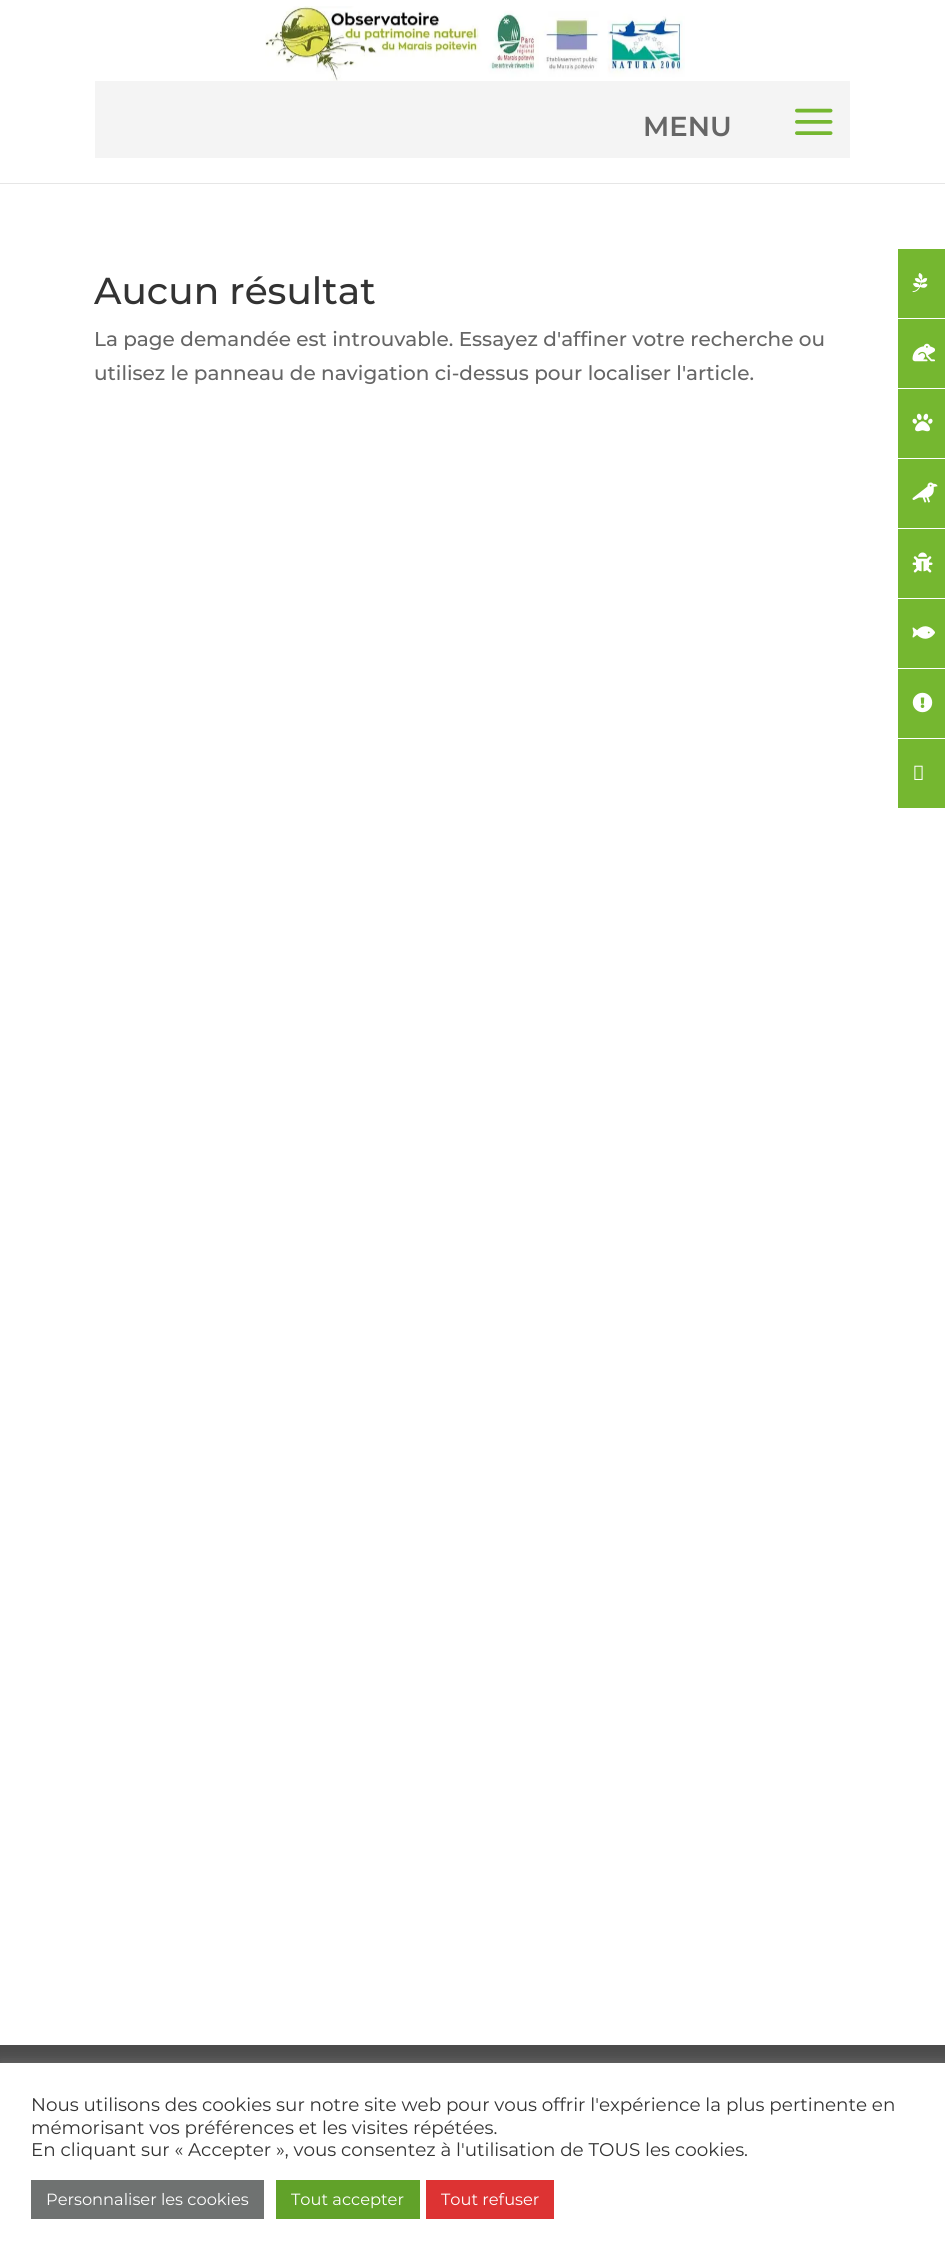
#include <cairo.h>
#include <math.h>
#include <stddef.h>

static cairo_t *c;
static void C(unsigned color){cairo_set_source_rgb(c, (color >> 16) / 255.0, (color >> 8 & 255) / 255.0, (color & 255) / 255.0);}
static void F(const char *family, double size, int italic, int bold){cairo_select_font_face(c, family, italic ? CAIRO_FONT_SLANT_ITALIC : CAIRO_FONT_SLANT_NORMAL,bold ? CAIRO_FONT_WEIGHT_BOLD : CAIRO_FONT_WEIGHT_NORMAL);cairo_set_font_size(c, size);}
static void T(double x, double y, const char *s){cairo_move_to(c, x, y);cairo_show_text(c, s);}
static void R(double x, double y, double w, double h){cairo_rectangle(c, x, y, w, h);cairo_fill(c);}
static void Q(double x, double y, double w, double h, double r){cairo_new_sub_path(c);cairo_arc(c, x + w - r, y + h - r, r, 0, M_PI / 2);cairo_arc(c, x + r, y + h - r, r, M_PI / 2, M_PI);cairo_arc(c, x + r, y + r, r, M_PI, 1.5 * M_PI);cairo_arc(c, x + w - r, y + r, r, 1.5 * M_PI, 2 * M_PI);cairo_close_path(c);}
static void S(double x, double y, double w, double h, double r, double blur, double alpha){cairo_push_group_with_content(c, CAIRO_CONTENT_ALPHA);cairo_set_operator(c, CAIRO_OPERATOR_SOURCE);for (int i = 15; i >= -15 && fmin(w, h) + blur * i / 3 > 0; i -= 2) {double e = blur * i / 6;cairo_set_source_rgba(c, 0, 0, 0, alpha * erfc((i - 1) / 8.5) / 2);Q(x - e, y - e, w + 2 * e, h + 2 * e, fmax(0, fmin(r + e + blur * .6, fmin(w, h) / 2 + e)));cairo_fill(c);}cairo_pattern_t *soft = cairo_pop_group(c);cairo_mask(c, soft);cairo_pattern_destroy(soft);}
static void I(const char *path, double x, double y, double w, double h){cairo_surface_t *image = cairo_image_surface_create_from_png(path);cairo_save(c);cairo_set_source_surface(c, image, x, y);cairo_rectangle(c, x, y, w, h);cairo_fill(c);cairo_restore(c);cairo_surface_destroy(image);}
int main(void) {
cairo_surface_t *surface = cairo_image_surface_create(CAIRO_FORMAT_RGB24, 945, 2256);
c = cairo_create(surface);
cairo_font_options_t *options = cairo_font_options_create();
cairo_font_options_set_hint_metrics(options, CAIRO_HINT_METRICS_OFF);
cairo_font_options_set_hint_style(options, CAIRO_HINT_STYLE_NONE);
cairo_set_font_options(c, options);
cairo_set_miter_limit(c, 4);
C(0xffffff);
cairo_paint(c);
C(0xe6e6e6);
R(0,183,945,1);
I("1.png",265,6,420,75);
C(0xf4f4f4);
R(95,81,755,77);
F("Montserrat SemiBold",27.5,0,0);
C(0x666666);
T(643,136,"MENU");
I("2.png",795,108,38,27);
F("Montserrat Medium",37.5,0,0);
C(0x333333);
T(94,304,"Aucun résultat");
F("Montserrat Medium",20,0,0);
C(0x666666);
T(94,346,"La page demandée est introuvable. Essayez d'affiner votre recherche ou");
T(94,380,"utilisez le panneau de navigation ci-dessus pour localiser l'article.");
C(0x75b730);
R(898,249,47,69);
I("3.png",912,273,16,20);
R(898,319,47,69);
I("4.png",912,343,23,19);
R(898,389,47,69);
I("5.png",912,413,21,19);
R(898,459,47,69);
I("6.png",912,482,26,21);
R(898,529,47,69);
I("7.png",912,552,21,21);
R(898,599,47,69);
I("8.png",912,626,23,13);
R(898,669,47,69);
I("9.png",912,692,21,21);
R(898,739,47,69);
I("10.png",914,765,9,15);
C(0x4b4b4b);
R(0,2045,945,18);
C(0xacabab);
S(0,2061,945,194,0,6,.3);
C(0xffffff);
R(0,2063,945,193);
F("Montserrat",18.35,0,0);
C(0x333333);
T(31,2111,"Nous utilisons des cookies sur notre site web pour vous offrir l'expérience la plus pertinente en");
T(31,2134,"mémorisant vos préférences et les visites répétées.");
T(31,2156,"En cliquant sur « Accepter », vous consentez à l'utilisation de TOUS les cookies.");
C(0x6f7271);
R(31,2180,233,39);
F("Montserrat",16.25,0,0);
C(0xffffff);
T(46,2205,"Personnaliser les cookies");
C(0x61a229);
R(276,2180,144,39);
C(0xffffff);
T(291,2205,"Tout accepter");
C(0xdd3333);
R(426,2180,128,39);
C(0xffffff);
T(441,2205,"Tout refuser");
cairo_surface_write_to_png(surface, "o.png");
cairo_font_options_destroy(options);
cairo_destroy(c);
cairo_surface_destroy(surface);
return 0;
}
